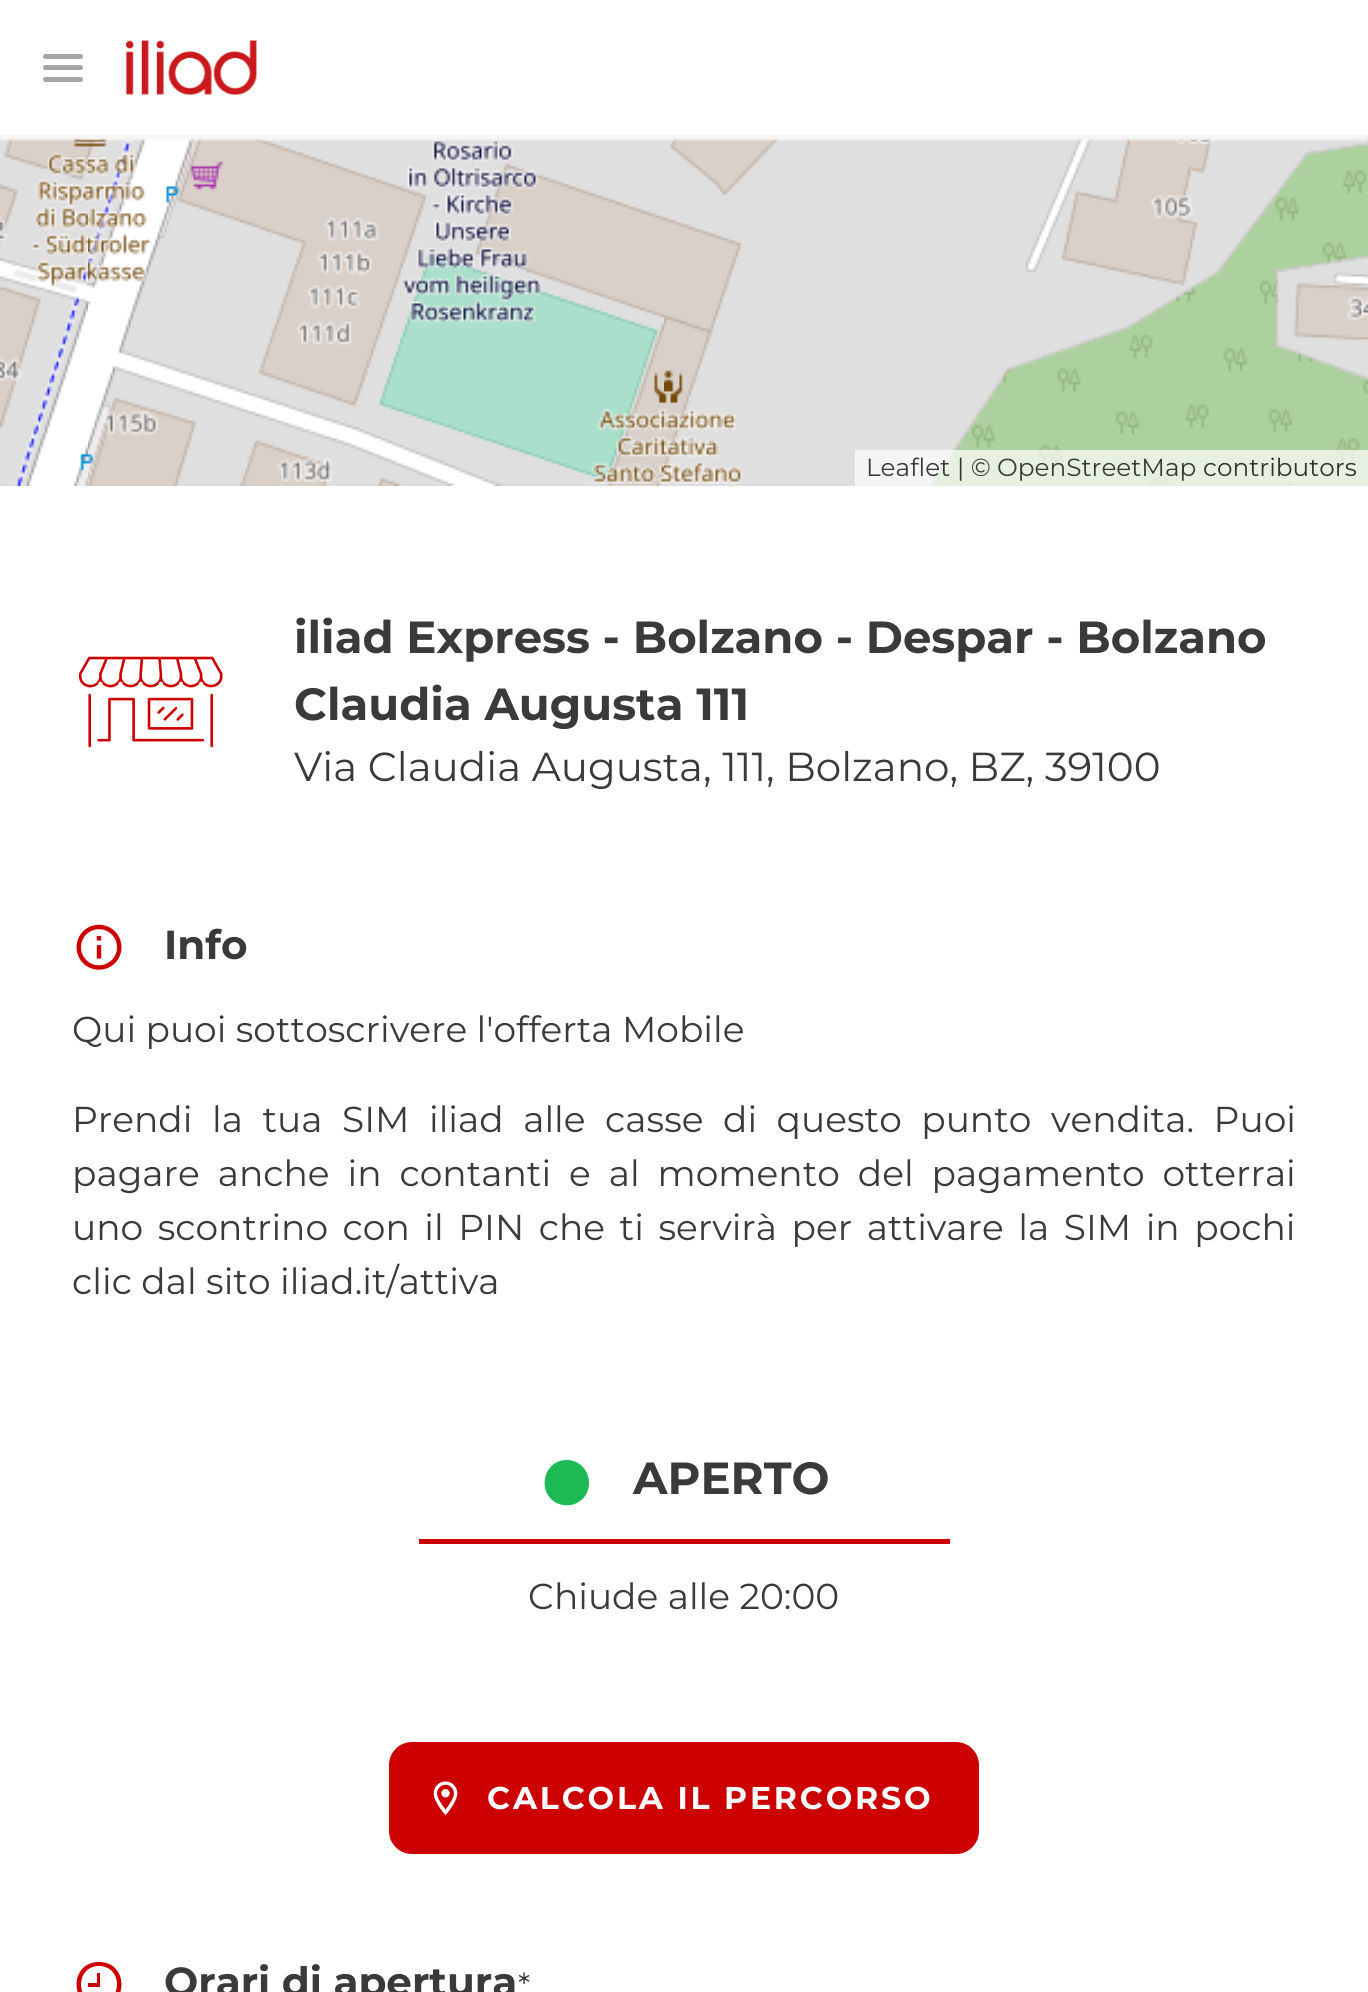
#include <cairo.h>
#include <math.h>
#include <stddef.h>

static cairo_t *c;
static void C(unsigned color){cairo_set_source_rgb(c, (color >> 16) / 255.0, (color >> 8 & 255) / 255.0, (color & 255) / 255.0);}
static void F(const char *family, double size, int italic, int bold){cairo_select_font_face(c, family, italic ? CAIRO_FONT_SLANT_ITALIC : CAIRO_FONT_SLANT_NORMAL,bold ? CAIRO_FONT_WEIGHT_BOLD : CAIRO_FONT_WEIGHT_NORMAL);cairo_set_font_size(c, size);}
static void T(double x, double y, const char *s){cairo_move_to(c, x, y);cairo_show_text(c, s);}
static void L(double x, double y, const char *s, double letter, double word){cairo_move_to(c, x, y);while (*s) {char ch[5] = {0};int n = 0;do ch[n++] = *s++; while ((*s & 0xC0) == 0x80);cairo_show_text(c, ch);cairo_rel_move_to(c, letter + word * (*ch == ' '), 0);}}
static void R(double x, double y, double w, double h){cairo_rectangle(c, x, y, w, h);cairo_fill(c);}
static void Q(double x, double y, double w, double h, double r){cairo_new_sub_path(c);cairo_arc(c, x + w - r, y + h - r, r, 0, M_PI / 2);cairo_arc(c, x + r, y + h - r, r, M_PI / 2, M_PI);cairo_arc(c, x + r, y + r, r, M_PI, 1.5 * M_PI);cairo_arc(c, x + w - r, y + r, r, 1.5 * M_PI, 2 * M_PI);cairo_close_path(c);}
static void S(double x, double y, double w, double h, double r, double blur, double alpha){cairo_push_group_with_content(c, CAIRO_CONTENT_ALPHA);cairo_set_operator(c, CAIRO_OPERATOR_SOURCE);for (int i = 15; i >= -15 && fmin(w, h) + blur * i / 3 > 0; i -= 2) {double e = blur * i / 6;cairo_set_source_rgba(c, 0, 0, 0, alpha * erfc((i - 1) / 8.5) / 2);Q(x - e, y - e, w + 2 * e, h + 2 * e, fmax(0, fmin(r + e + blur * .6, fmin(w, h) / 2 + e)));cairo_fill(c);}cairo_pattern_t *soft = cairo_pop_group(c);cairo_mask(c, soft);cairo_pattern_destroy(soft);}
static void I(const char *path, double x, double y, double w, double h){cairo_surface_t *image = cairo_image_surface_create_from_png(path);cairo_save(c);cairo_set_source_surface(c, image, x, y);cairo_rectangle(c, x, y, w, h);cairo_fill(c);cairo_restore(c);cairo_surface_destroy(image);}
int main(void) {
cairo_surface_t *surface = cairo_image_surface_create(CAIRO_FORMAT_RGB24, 1368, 1992);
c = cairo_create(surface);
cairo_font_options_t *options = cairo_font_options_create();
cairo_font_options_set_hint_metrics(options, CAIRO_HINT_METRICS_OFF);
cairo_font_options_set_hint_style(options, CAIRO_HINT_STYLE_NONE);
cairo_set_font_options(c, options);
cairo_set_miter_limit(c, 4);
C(0xffffff);
cairo_paint(c);
I("2.png",0,135,88,351);
I("3.png",88,138,576,348);
I("4.png",664,138,576,348);
I("5.png",1240,135,128,351);
C(0xf6f6f6);
S(0,5,1368,135,0,1,1);
C(0xffffff);
R(0,4,1368,131);
C(0xa6a6a6);
Q(43,54,40,5,2.5);
cairo_fill(c);
Q(43,65,40,5,2.5);
cairo_fill(c);
Q(43,77,40,5,2.5);
cairo_fill(c);
I("1.png",126,40,131,55);
cairo_set_source_rgba(c,1,1,1,0.7);
R(855,450,513,36);
F("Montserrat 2 Thin",24.75,0,0);
C(0x3c3a39);
T(866,476,"Leaflet");
C(0x333333);
T(957,476,"| ©");
C(0x3c3a39);
T(997,476,"OpenStreetMap");
C(0x333333);
T(1203,476,"contributors");
I("6.png",78,656,145,92);
F("Montserrat Thin",45,0,0);
C(0x3c3a39);
T(294,653,"iliad Express - Bolzano - Despar - Bolzano");
T(294,720,"Claudia Augusta 111");
F("Montserrat 2 Thin",40.5,0,0);
T(294,781,"Via Claudia Augusta, 111, Bolzano, BZ, 39100");
I("7.png",76,924,46,46);
F("Montserrat Thin",40.5,0,0);
T(164,959,"Info");
F("Montserrat 2 Thin",36,0,0);
T(72,1042,"Qui puoi sottoscrivere l'offerta Mobile");
L(72,1132,"Prendi la tua SIM iliad alle casse di questo punto vendita. Puoi",0,10.1);
L(72,1186,"pagare anche in contanti e al momento del pagamento otterrai",0,8.5);
L(72,1240,"uno scontrino con il PIN che ti servirà per attivare la SIM in pochi",0,5.1);
T(72,1294,"clic dal sito iliad.it/attiva");
C(0x1db954);
cairo_new_path(c);
cairo_move_to(c,567,1460);
cairo_curve_to(c,540,1460,536,1500,563,1505);
cairo_curve_to(c,568,1506,575,1505,580,1501);
cairo_curve_to(c,586,1497,589,1490,589,1483);
cairo_curve_to(c,589,1470,579,1460,567,1460);
cairo_close_path(c);
cairo_fill(c);
F("Montserrat Thin",45,0,0);
C(0x3c3a39);
T(633,1494,"APERTO");
C(0xcc0000);
R(419,1539,531,5);
F("Montserrat 2 Thin",36,0,0);
C(0x3c3a39);
T(528,1609,"Chiude alle 20:00");
C(0xcc0000);
Q(389,1742,590,112,23);
cairo_fill(c);
I("8.png",433,1781,25,34);
F("Montserrat Thin",31.5,0,0);
C(0xffffff);
L(487,1809,"CALCOLA IL PERCORSO",2.8,0);
C(0xcc0000);
cairo_new_path(c);
cairo_move_to(c,99,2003);
cairo_curve_to(c,123,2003,123,1966,99,1966);
cairo_curve_to(c,75,1966,75,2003,99,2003);
cairo_close_path(c);
cairo_move_to(c,99,1962);
cairo_curve_to(c,129,1962,129,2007,99,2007);
cairo_curve_to(c,69,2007,69,1962,99,1962);
cairo_close_path(c);
cairo_move_to(c,100,1973);
cairo_line_to(c,100,1987);
cairo_line_to(c,88,1987);
cairo_line_to(c,88,1983);
cairo_line_to(c,97,1983);
cairo_line_to(c,97,1973);
cairo_close_path(c);
cairo_fill(c);
F("Montserrat Thin",40.5,0,0);
C(0x3c3a39);
T(164,1996,"Orari di apertura");
F("Montserrat 2 Thin",31.5,0,0);
T(518,1996,"*");
cairo_surface_write_to_png(surface, "o.png");
cairo_font_options_destroy(options);
cairo_destroy(c);
cairo_surface_destroy(surface);
return 0;
}
